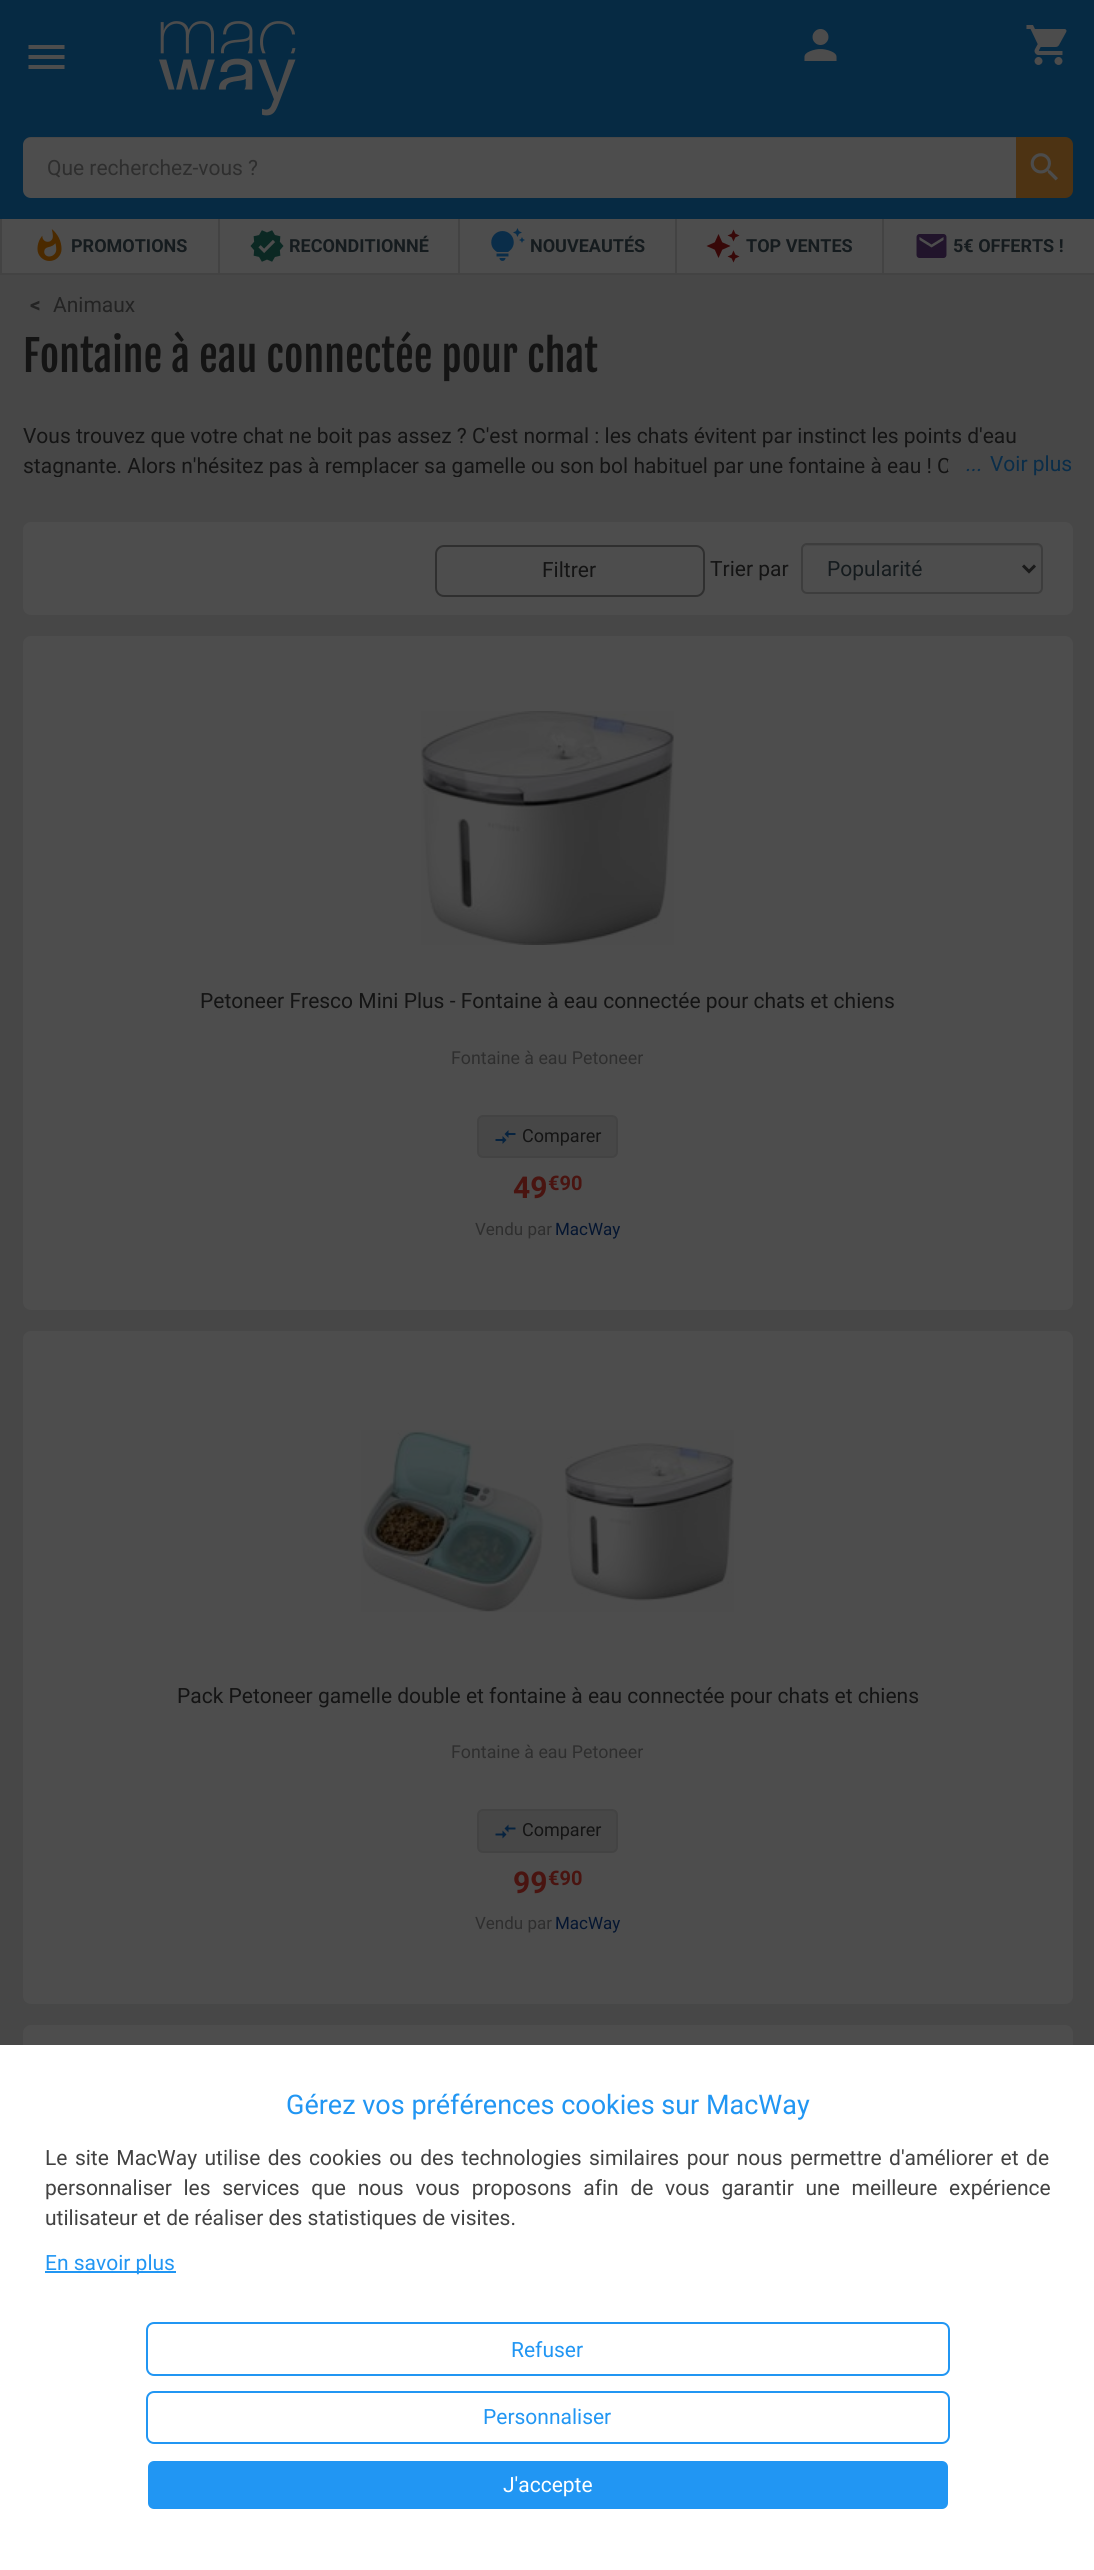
#include <cairo.h>
#include <math.h>
#include <stddef.h>

static cairo_t *c;
static void C(unsigned color){cairo_set_source_rgb(c, (color >> 16) / 255.0, (color >> 8 & 255) / 255.0, (color & 255) / 255.0);}
static void F(const char *family, double size, int italic, int bold){cairo_select_font_face(c, family, italic ? CAIRO_FONT_SLANT_ITALIC : CAIRO_FONT_SLANT_NORMAL,bold ? CAIRO_FONT_WEIGHT_BOLD : CAIRO_FONT_WEIGHT_NORMAL);cairo_set_font_size(c, size);}
static void T(double x, double y, const char *s){cairo_move_to(c, x, y);cairo_show_text(c, s);}
static void L(double x, double y, const char *s, double letter, double word){cairo_move_to(c, x, y);while (*s) {char ch[5] = {0};int n = 0;do ch[n++] = *s++; while ((*s & 0xC0) == 0x80);cairo_show_text(c, ch);cairo_rel_move_to(c, letter + word * (*ch == ' '), 0);}}
static void R(double x, double y, double w, double h){cairo_rectangle(c, x, y, w, h);cairo_fill(c);}
static void Q(double x, double y, double w, double h, double r){cairo_new_sub_path(c);cairo_arc(c, x + w - r, y + h - r, r, 0, M_PI / 2);cairo_arc(c, x + r, y + h - r, r, M_PI / 2, M_PI);cairo_arc(c, x + r, y + r, r, M_PI, 1.5 * M_PI);cairo_arc(c, x + w - r, y + r, r, 1.5 * M_PI, 2 * M_PI);cairo_close_path(c);}
static void I(const char *path, double x, double y, double w, double h){cairo_surface_t *image = cairo_image_surface_create_from_png(path);cairo_save(c);cairo_set_source_surface(c, image, x, y);cairo_rectangle(c, x, y, w, h);cairo_fill(c);cairo_restore(c);cairo_surface_destroy(image);}
int main(void) {
cairo_surface_t *surface = cairo_image_surface_create(CAIRO_FORMAT_RGB24, 1094, 2570);
c = cairo_create(surface);
cairo_font_options_t *options = cairo_font_options_create();
cairo_font_options_set_hint_metrics(options, CAIRO_HINT_METRICS_OFF);
cairo_font_options_set_hint_style(options, CAIRO_HINT_STYLE_NONE);
cairo_set_font_options(c, options);
cairo_set_miter_limit(c, 4);
C(0x474747);
cairo_paint(c);
C(0x062a43);
R(0,0,1094,219);
C(0x4d4d4d);
cairo_new_path(c);
cairo_move_to(c,28.5,45);
cairo_line_to(c,64.5,45);
cairo_line_to(c,64.5,49);
cairo_line_to(c,28.5,49);
cairo_close_path(c);
cairo_move_to(c,28.5,59);
cairo_line_to(c,28.5,55);
cairo_line_to(c,64.5,55);
cairo_line_to(c,64.5,59);
cairo_close_path(c);
cairo_move_to(c,28.5,69);
cairo_line_to(c,28.5,65);
cairo_line_to(c,64.5,65);
cairo_line_to(c,64.5,69);
cairo_close_path(c);
cairo_fill(c);
I("1.png",159,21,137,95);
I("2.png",804,29,33,32);
I("3.png",1026,25,41,40);
cairo_new_path(c);
cairo_move_to(c,31,137);
cairo_line_to(c,1016,137);
cairo_line_to(c,1016,198);
cairo_line_to(c,31,198);
cairo_curve_to(c,26.5,198,23,194.5,23,190);
cairo_line_to(c,23,145);
cairo_curve_to(c,23,140.5,26.5,137,31,137);
cairo_close_path(c);
cairo_fill(c);
cairo_set_source_rgba(c,0,0,0,0.07);
cairo_new_path(c);
cairo_move_to(c,30,138);
cairo_line_to(c,1016,138);
cairo_line_to(c,1016,137);
cairo_line_to(c,31,137);
cairo_curve_to(c,29,137,26,138,25,140);
cairo_curve_to(c,26,139,28,138,30,138);
cairo_close_path(c);
cairo_fill(c);
F("Roboto",21,0,0);
C(0x2e2e2e);
T(47,175,"Que recherchez-vous ?");
C(0x4d3313);
cairo_new_path(c);
cairo_move_to(c,1016,137);
cairo_line_to(c,1065,137);
cairo_curve_to(c,1069.5,137,1073,140.5,1073,145);
cairo_line_to(c,1073,190);
cairo_curve_to(c,1073,194.5,1069.5,198,1065,198);
cairo_line_to(c,1016,198);
cairo_close_path(c);
cairo_fill(c);
I("4.png",1030,153,28,28);
C(0x4d4d4d);
R(2,219,1092,54);
C(0x434343);
R(0,273,1094,2);
R(218,219,2,56);
R(0,219,2,56);
I("5.png",37,229,25,32);
F("Roboto",18,0,1);
C(0x151b1e);
T(71,252,"PROMOTIONS");
C(0x434343);
R(458,219,2,56);
I("6.png",250,230,34,32);
C(0x151b1e);
T(289,252,"RECONDITIONNÉ");
C(0x434343);
R(675,219,2,56);
I("7.png",491,228,34,33);
C(0x151b1e);
T(530,252,"NOUVEAUTÉS");
C(0x434343);
R(882,219,2,56);
I("8.png",706,229,34,34);
C(0x151b1e);
T(746,252,"TOP VENTES");
I("9.png",916,234,31,24);
T(953,252,"5€ OFFERTS !");
F("Roboto",21,0,1);
C(0x232323);
T(30,312,"<");
F("Roboto",21,0,0);
T(53,312,"Animaux");
F("Fjalla One",42,0,0);
C(0x141414);
T(23,372,"Fontaine à eau connectée pour chat");
F("Roboto",21,0,0);
T(23,443,"Vous trouvez que votre chat ne boit pas assez ? C'est normal : les chats évitent par instinct les points d'eau");
cairo_save(c);
cairo_rectangle(c,23,423,1050,54);
cairo_clip(c);
T(23,473,"stagnante. Alors n'hésitez pas à remplacer sa gamelle ou son bol habituel par une fontaine à eau ! C");
cairo_restore(c);
C(0x474747);
R(948,460,2,11);
F("Roboto",21,1,0);
C(0x0a2d49);
T(965,471,"...");
F("Roboto",21,0,0);
T(990,471,"Voir plus");
C(0x4d4d4d);
Q(23,522,1050,93,8);
cairo_fill(c);
Q(436,546,268,50,8);
C(0x2f2f2f);
cairo_stroke(c);
C(0x141414);
T(542,577,"Filtrer");
T(710,576,"Trier par");
C(0x474747);
cairo_new_path(c);
cairo_move_to(c,807,546);
cairo_line_to(c,1036,546);
cairo_curve_to(c,1039,546,1041,548,1041,550);
cairo_curve_to(c,1041,547,1039,545,1036,545);
cairo_line_to(c,808,545);
cairo_curve_to(c,806,545,805,546,804,547);
cairo_close_path(c);
cairo_fill(c);
Q(802,544,240,49,5);
C(0x3d3d3d);
cairo_stroke(c);
cairo_new_path(c);
cairo_move_to(c,1023,565.5);
cairo_line_to(c,1029,571.5);
cairo_line_to(c,1035,565.5);
C(0x1a1a1a);
cairo_set_line_width(c,3);
cairo_stroke(c);
C(0x151b1e);
T(827,576,"Popularité");
C(0x4d4d4d);
Q(23,636,1050,674,8);
cairo_fill(c);
I("10.png",421,711,253,234);
C(0x141414);
T(200,1008,"Petoneer Fresco Mini Plus - Fontaine à eau connectée pour chats et chiens");
F("Roboto",17.8,0,0);
C(0x2e2e2e);
T(451,1064,"Fontaine à eau Petoneer");
C(0x474747);
Q(478,1116,139,41,5);
cairo_fill_preserve(c);
C(0x434343);
cairo_set_line_width(c,2);
cairo_stroke(c);
I("11.png",495,1130,21,14);
F("Roboto",18,0,0);
C(0x141414);
T(522,1142,"Comparer");
F("Roboto",30,0,1);
C(0x491410);
T(513,1198,"49");
F("Roboto",20,0,1);
T(548,1190,"€90");
F("Roboto",17,0,0);
C(0x2e2e2e);
T(475,1235,"Vendu par");
C(0x041530);
T(555,1235,"MacWay");
C(0x4d4d4d);
Q(23,1331,1050,673,8);
cairo_fill(c);
I("12.png",361,1430,373,182);
F("Roboto",21,0,0);
C(0x141414);
T(177,1703,"Pack Petoneer gamelle double et fontaine à eau connectée pour chats et chiens");
F("Roboto",17.8,0,0);
C(0x2e2e2e);
T(451,1758,"Fontaine à eau Petoneer");
C(0x474747);
Q(478,1810,139,42,5);
cairo_fill_preserve(c);
C(0x434343);
cairo_stroke(c);
I("13.png",495,1824,21,15);
F("Roboto",18,0,0);
C(0x141414);
T(522,1836,"Comparer");
F("Roboto",30,0,1);
C(0x491410);
T(513,1893,"99");
F("Roboto",20,0,1);
T(548,1885,"€90");
F("Roboto",17,0,0);
C(0x2e2e2e);
T(475,1929,"Vendu par");
C(0x041530);
T(555,1929,"MacWay");
C(0x4d4d4d);
Q(23,2025,1050,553,8);
cairo_fill(c);
C(0xffffff);
R(0,2045,1094,525);
F("Roboto",27,0,0);
C(0x2196f3);
T(286,2114,"Gérez vos préférences cookies sur MacWay");
F("Roboto",21,0,0);
C(0x424242);
L(45,2165,"Le site MacWay utilise des cookies ou des technologies similaires pour nous permettre d'améliorer et de",0,2.25);
L(45,2195,"personnaliser les services que nous vous proposons afin de vous garantir une meilleure expérience",0,6.5);
T(45,2225,"utilisateur et de réaliser des statistiques de visites.");
C(0x2196f3);
R(45,2271,131,2);
T(45,2270,"En savoir plus");
Q(147,2323,802,52,7);
cairo_stroke(c);
T(511,2357,"Refuser");
Q(147,2392,802,51,7);
cairo_stroke(c);
T(483,2424,"Personnaliser");
Q(147,2460,802,50,7);
cairo_fill_preserve(c);
C(0xffffff);
cairo_stroke(c);
T(503,2492,"J'accepte");
cairo_surface_write_to_png(surface, "o.png");
cairo_font_options_destroy(options);
cairo_destroy(c);
cairo_surface_destroy(surface);
return 0;
}
